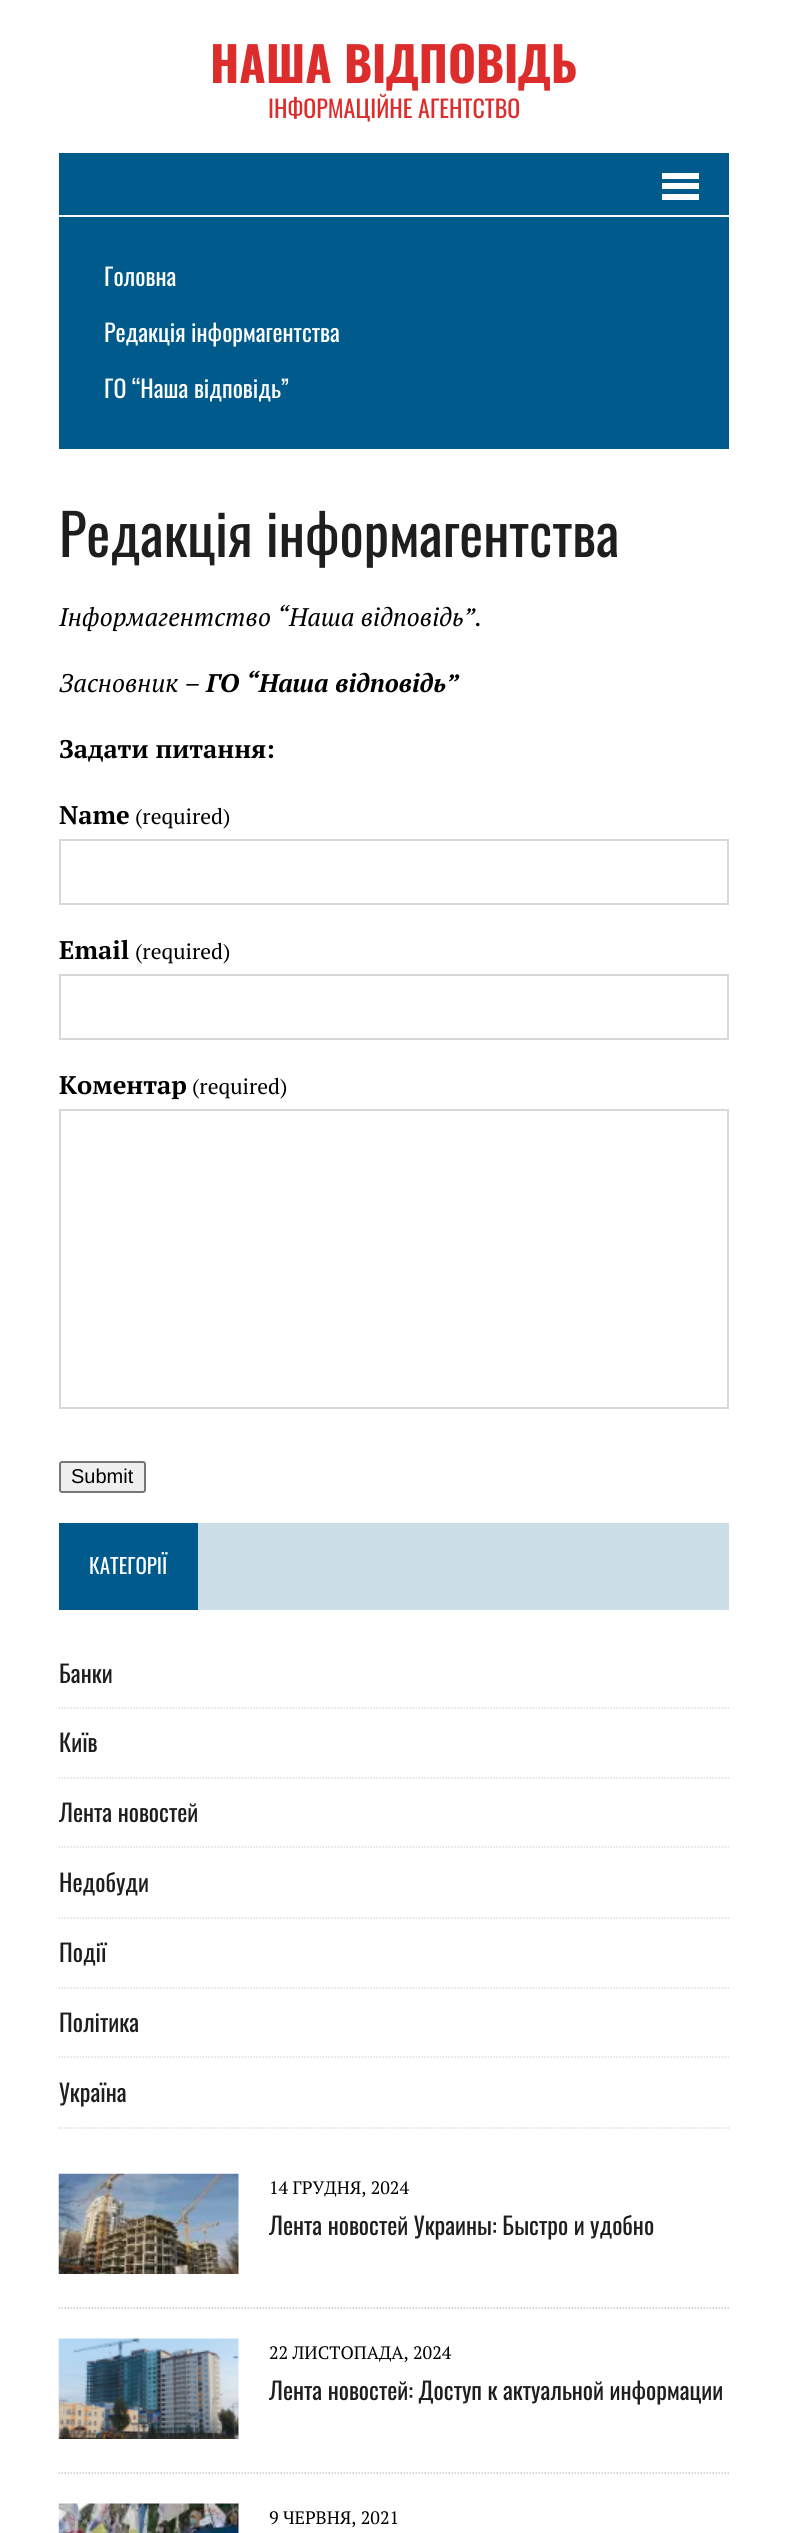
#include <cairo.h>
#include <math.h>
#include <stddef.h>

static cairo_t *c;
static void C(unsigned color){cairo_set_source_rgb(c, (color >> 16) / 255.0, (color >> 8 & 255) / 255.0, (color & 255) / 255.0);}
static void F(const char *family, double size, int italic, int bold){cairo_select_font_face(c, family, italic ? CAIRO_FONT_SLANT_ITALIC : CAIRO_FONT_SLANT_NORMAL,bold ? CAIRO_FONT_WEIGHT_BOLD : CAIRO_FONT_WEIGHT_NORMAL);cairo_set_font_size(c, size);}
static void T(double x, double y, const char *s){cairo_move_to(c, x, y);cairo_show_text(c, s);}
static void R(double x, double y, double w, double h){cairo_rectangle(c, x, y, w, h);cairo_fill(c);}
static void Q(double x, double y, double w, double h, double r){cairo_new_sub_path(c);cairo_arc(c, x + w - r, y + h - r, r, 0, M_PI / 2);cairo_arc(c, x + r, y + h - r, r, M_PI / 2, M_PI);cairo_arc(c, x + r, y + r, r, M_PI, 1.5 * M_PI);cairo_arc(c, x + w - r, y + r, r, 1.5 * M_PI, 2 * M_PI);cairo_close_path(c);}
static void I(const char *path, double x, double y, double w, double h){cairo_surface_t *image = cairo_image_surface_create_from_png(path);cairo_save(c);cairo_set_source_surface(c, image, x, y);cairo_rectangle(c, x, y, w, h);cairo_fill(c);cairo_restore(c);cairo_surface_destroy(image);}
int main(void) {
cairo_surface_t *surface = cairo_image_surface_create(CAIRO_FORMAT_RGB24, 787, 2533);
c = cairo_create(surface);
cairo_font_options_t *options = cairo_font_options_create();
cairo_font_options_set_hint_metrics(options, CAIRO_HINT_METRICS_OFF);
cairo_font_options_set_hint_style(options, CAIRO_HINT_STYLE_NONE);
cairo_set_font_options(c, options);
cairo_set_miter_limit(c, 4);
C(0xffffff);
cairo_paint(c);
F("Oswald",48,0,1);
C(0xdd2c2c);
T(210,83,"НАША ВІДПОВІДЬ");
F("Oswald",24,0,0);
T(268,118,"ІНФОРМАЦІЙНЕ АГЕНТСТВО");
C(0x005a8c);
R(59,153,670,296);
C(0xffffff);
R(662,173,37,6);
R(662,183,37,6);
R(662,194,37,6);
R(59,215,670,2);
T(104,286,"Головна");
T(104,342,"Редакція інформагентства");
T(104,398,"ГО “Наша відповідь”");
F("Oswald",57,0,0);
C(0x1f1e1e);
T(59,557,"Редакція інформагентства");
F("PT Serif",25.5,1,0);
C(0x000000);
T(59,626,"Інформагентство “Наша відповідь”.");
T(59,692,"Засновник –");
F("PT Serif",25.5,1,1);
T(206,692,"ГО “Наша відповідь”");
F("PT Serif",25.5,0,1);
T(59,758,"Задати питання:");
T(59,824,"Name");
F("PT Serif",21.5,0,0);
T(135,824,"(required)");
cairo_rectangle(c,60,840,668,64);
C(0xd7d8d8);
cairo_stroke(c);
F("PT Serif",25.5,0,1);
C(0x000000);
T(59,959,"Email");
F("PT Serif",21.5,0,0);
T(135,959,"(required)");
cairo_rectangle(c,60,975,668,64);
C(0xd7d8d8);
cairo_stroke(c);
F("PT Serif",25.5,0,1);
C(0x000000);
T(59,1094,"Коментар");
F("PT Serif",21.5,0,0);
T(192,1094,"(required)");
cairo_rectangle(c,60,1110,668,298);
C(0xd7d8d8);
cairo_stroke(c);
C(0xefefef);
Q(60,1462,85,30,2);
cairo_fill_preserve(c);
C(0x767676);
cairo_stroke(c);
F("Liberation Sans",20,0,0);
C(0x000000);
T(71,1483,"Submit");
C(0xccdee8);
R(198,1523,531,87);
C(0x005a8c);
R(59,1523,139,87);
F("Oswald",21,0,0);
C(0xffffff);
T(89,1574,"КАТЕГОРІЇ");
cairo_new_path(c);
cairo_move_to(c,58.5,1708);
cairo_line_to(c,729,1708);
C(0xdcdcdc);
cairo_set_line_width(c,1.5);
cairo_set_dash(c,(double[]){1.5,1.5},2,0);
cairo_stroke(c);
F("Oswald",24,0,0);
C(0x1f1e1e);
T(59,1683,"Банки");
cairo_new_path(c);
cairo_move_to(c,58.5,1778);
cairo_line_to(c,729,1778);
C(0xdcdcdc);
cairo_stroke(c);
C(0x1f1e1e);
T(59,1752,"Київ");
cairo_new_path(c);
cairo_move_to(c,58.5,1847);
cairo_line_to(c,729,1847);
C(0xdcdcdc);
cairo_stroke(c);
C(0x1f1e1e);
T(59,1822,"Лента новостей");
cairo_new_path(c);
cairo_move_to(c,58.5,1918);
cairo_line_to(c,729,1918);
C(0xdcdcdc);
cairo_stroke(c);
C(0x1f1e1e);
T(59,1892,"Недобуди");
cairo_new_path(c);
cairo_move_to(c,58.5,1988);
cairo_line_to(c,729,1988);
C(0xdcdcdc);
cairo_stroke(c);
C(0x1f1e1e);
T(59,1962,"Події");
cairo_new_path(c);
cairo_move_to(c,58.5,2057);
cairo_line_to(c,729,2057);
C(0xdcdcdc);
cairo_stroke(c);
C(0x1f1e1e);
T(59,2032,"Політика");
cairo_new_path(c);
cairo_move_to(c,58.5,2128);
cairo_line_to(c,729,2128);
C(0xdcdcdc);
cairo_stroke(c);
C(0x1f1e1e);
T(59,2102,"Україна");
I("1.png",58,2173,181,101);
F("PT Serif",18,0,0);
C(0x000000);
T(269,2194,"14 ГРУДНЯ, 2024");
F("Oswald",24,0,0);
C(0x1f1e1e);
T(269,2235,"Лента новостей Украины: Быстро и удобно");
cairo_new_path(c);
cairo_move_to(c,58.5,2308);
cairo_line_to(c,729,2308);
C(0xcdcdcd);
cairo_stroke(c);
I("2.png",58,2338,181,101);
F("PT Serif",18,0,0);
C(0x000000);
T(269,2359,"22 ЛИСТОПАДА, 2024");
F("Oswald",24,0,0);
C(0x1f1e1e);
T(269,2400,"Лента новостей: Доступ к актуальной информации");
cairo_new_path(c);
cairo_move_to(c,58.5,2473);
cairo_line_to(c,729,2473);
C(0xcdcdcd);
cairo_stroke(c);
I("3.png",58,2503,181,30);
F("PT Serif",18,0,0);
C(0x000000);
T(269,2524,"9 ЧЕРВНЯ, 2021");
cairo_surface_write_to_png(surface, "o.png");
cairo_font_options_destroy(options);
cairo_destroy(c);
cairo_surface_destroy(surface);
return 0;
}
